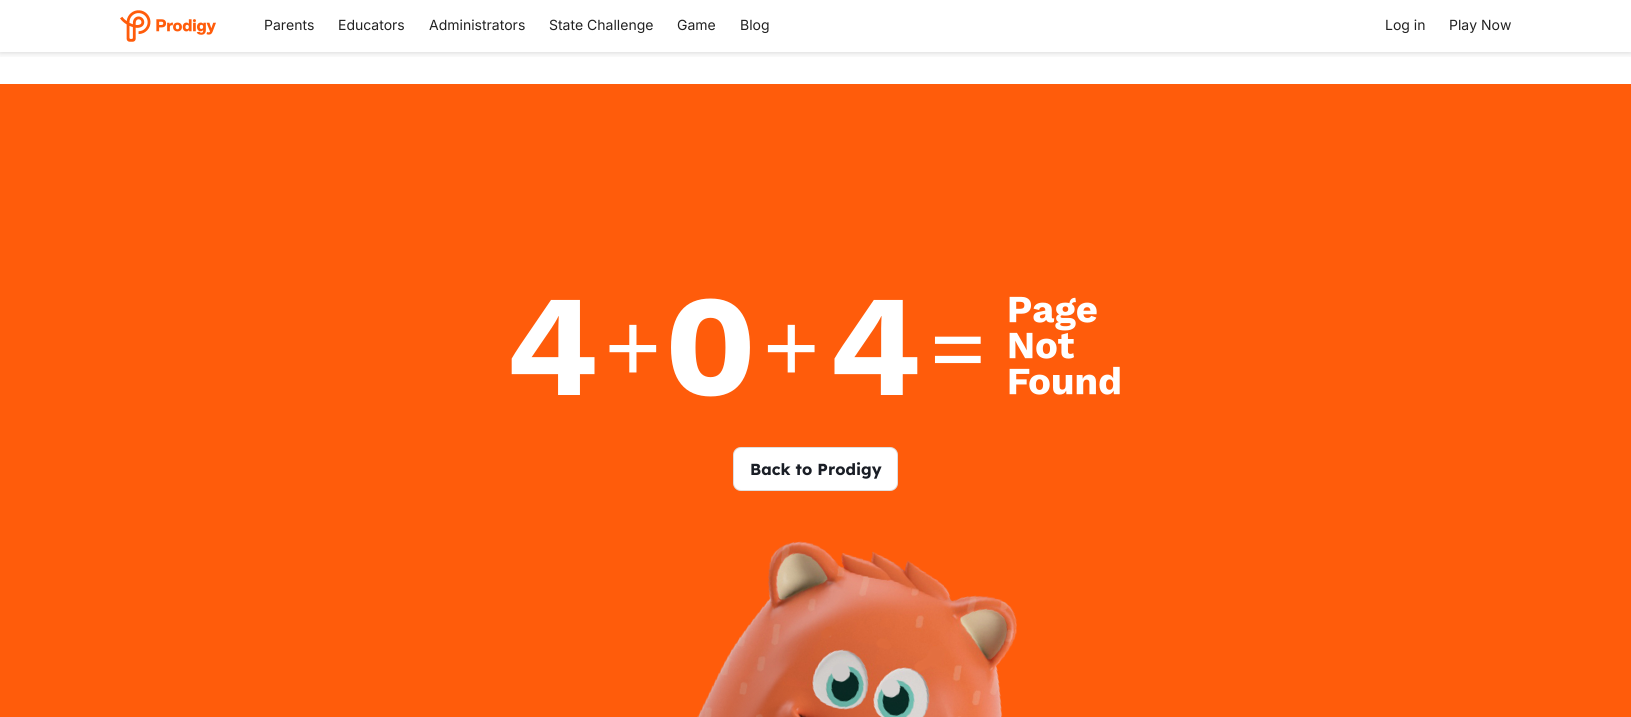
#include <cairo.h>
#include <math.h>
#include <stddef.h>

static cairo_t *c;
static void C(unsigned color){cairo_set_source_rgb(c, (color >> 16) / 255.0, (color >> 8 & 255) / 255.0, (color & 255) / 255.0);}
static void F(const char *family, double size, int italic, int bold){cairo_select_font_face(c, family, italic ? CAIRO_FONT_SLANT_ITALIC : CAIRO_FONT_SLANT_NORMAL,bold ? CAIRO_FONT_WEIGHT_BOLD : CAIRO_FONT_WEIGHT_NORMAL);cairo_set_font_size(c, size);}
static void T(double x, double y, const char *s){cairo_move_to(c, x, y);cairo_show_text(c, s);}
static void R(double x, double y, double w, double h){cairo_rectangle(c, x, y, w, h);cairo_fill(c);}
static void Q(double x, double y, double w, double h, double r){cairo_new_sub_path(c);cairo_arc(c, x + w - r, y + h - r, r, 0, M_PI / 2);cairo_arc(c, x + r, y + h - r, r, M_PI / 2, M_PI);cairo_arc(c, x + r, y + r, r, M_PI, 1.5 * M_PI);cairo_arc(c, x + w - r, y + r, r, 1.5 * M_PI, 2 * M_PI);cairo_close_path(c);}
static void S(double x, double y, double w, double h, double r, double blur, double alpha){cairo_push_group_with_content(c, CAIRO_CONTENT_ALPHA);cairo_set_operator(c, CAIRO_OPERATOR_SOURCE);for (int i = 15; i >= -15 && fmin(w, h) + blur * i / 3 > 0; i -= 2) {double e = blur * i / 6;cairo_set_source_rgba(c, 0, 0, 0, alpha * erfc((i - 1) / 8.5) / 2);Q(x - e, y - e, w + 2 * e, h + 2 * e, fmax(0, fmin(r + e + blur * .6, fmin(w, h) / 2 + e)));cairo_fill(c);}cairo_pattern_t *soft = cairo_pop_group(c);cairo_mask(c, soft);cairo_pattern_destroy(soft);}
static void I(const char *path, double x, double y, double w, double h){cairo_surface_t *image = cairo_image_surface_create_from_png(path);cairo_save(c);cairo_set_source_surface(c, image, x, y);cairo_rectangle(c, x, y, w, h);cairo_fill(c);cairo_restore(c);cairo_surface_destroy(image);}
int main(void) {
cairo_surface_t *surface = cairo_image_surface_create(CAIRO_FORMAT_RGB24, 1631, 717);
c = cairo_create(surface);
cairo_font_options_t *options = cairo_font_options_create();
cairo_font_options_set_hint_metrics(options, CAIRO_HINT_METRICS_OFF);
cairo_font_options_set_hint_style(options, CAIRO_HINT_STYLE_NONE);
cairo_set_font_options(c, options);
cairo_set_miter_limit(c, 4);
C(0xffffff);
cairo_paint(c);
cairo_save(c);
cairo_rectangle(c,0,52,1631,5);
cairo_clip(c);
C(0x000000);
S(0,0,1631,52,0,4,.2);
cairo_restore(c);
I("1.png",120,10,96,32);
F("Inter",14,0,0);
C(0x222222);
T(264,30,"Parents");
T(338,30,"Educators");
T(429,30,"Administrators");
T(549,30,"State Challenge");
T(677,30,"Game");
T(740,30,"Blog");
T(1385,30,"Log in");
T(1449,30,"Play Now");
C(0xff5c0b);
R(0,84,1631,633);
I("2.png",511,296,609,101);
C(0xffffff);
Q(733,447,165,44,8);
cairo_fill(c);
Q(733.5,447.5,164,43,7.5);
cairo_set_source_rgba(c,0,0,0,0.13);
cairo_set_line_width(c,1);
cairo_stroke(c);
F("Lexend",16,0,1);
C(0x1a1e26);
T(750,475,"Back to Prodigy");
I("3.png",697,541,320,176);
cairo_surface_write_to_png(surface, "o.png");
cairo_font_options_destroy(options);
cairo_destroy(c);
cairo_surface_destroy(surface);
return 0;
}
